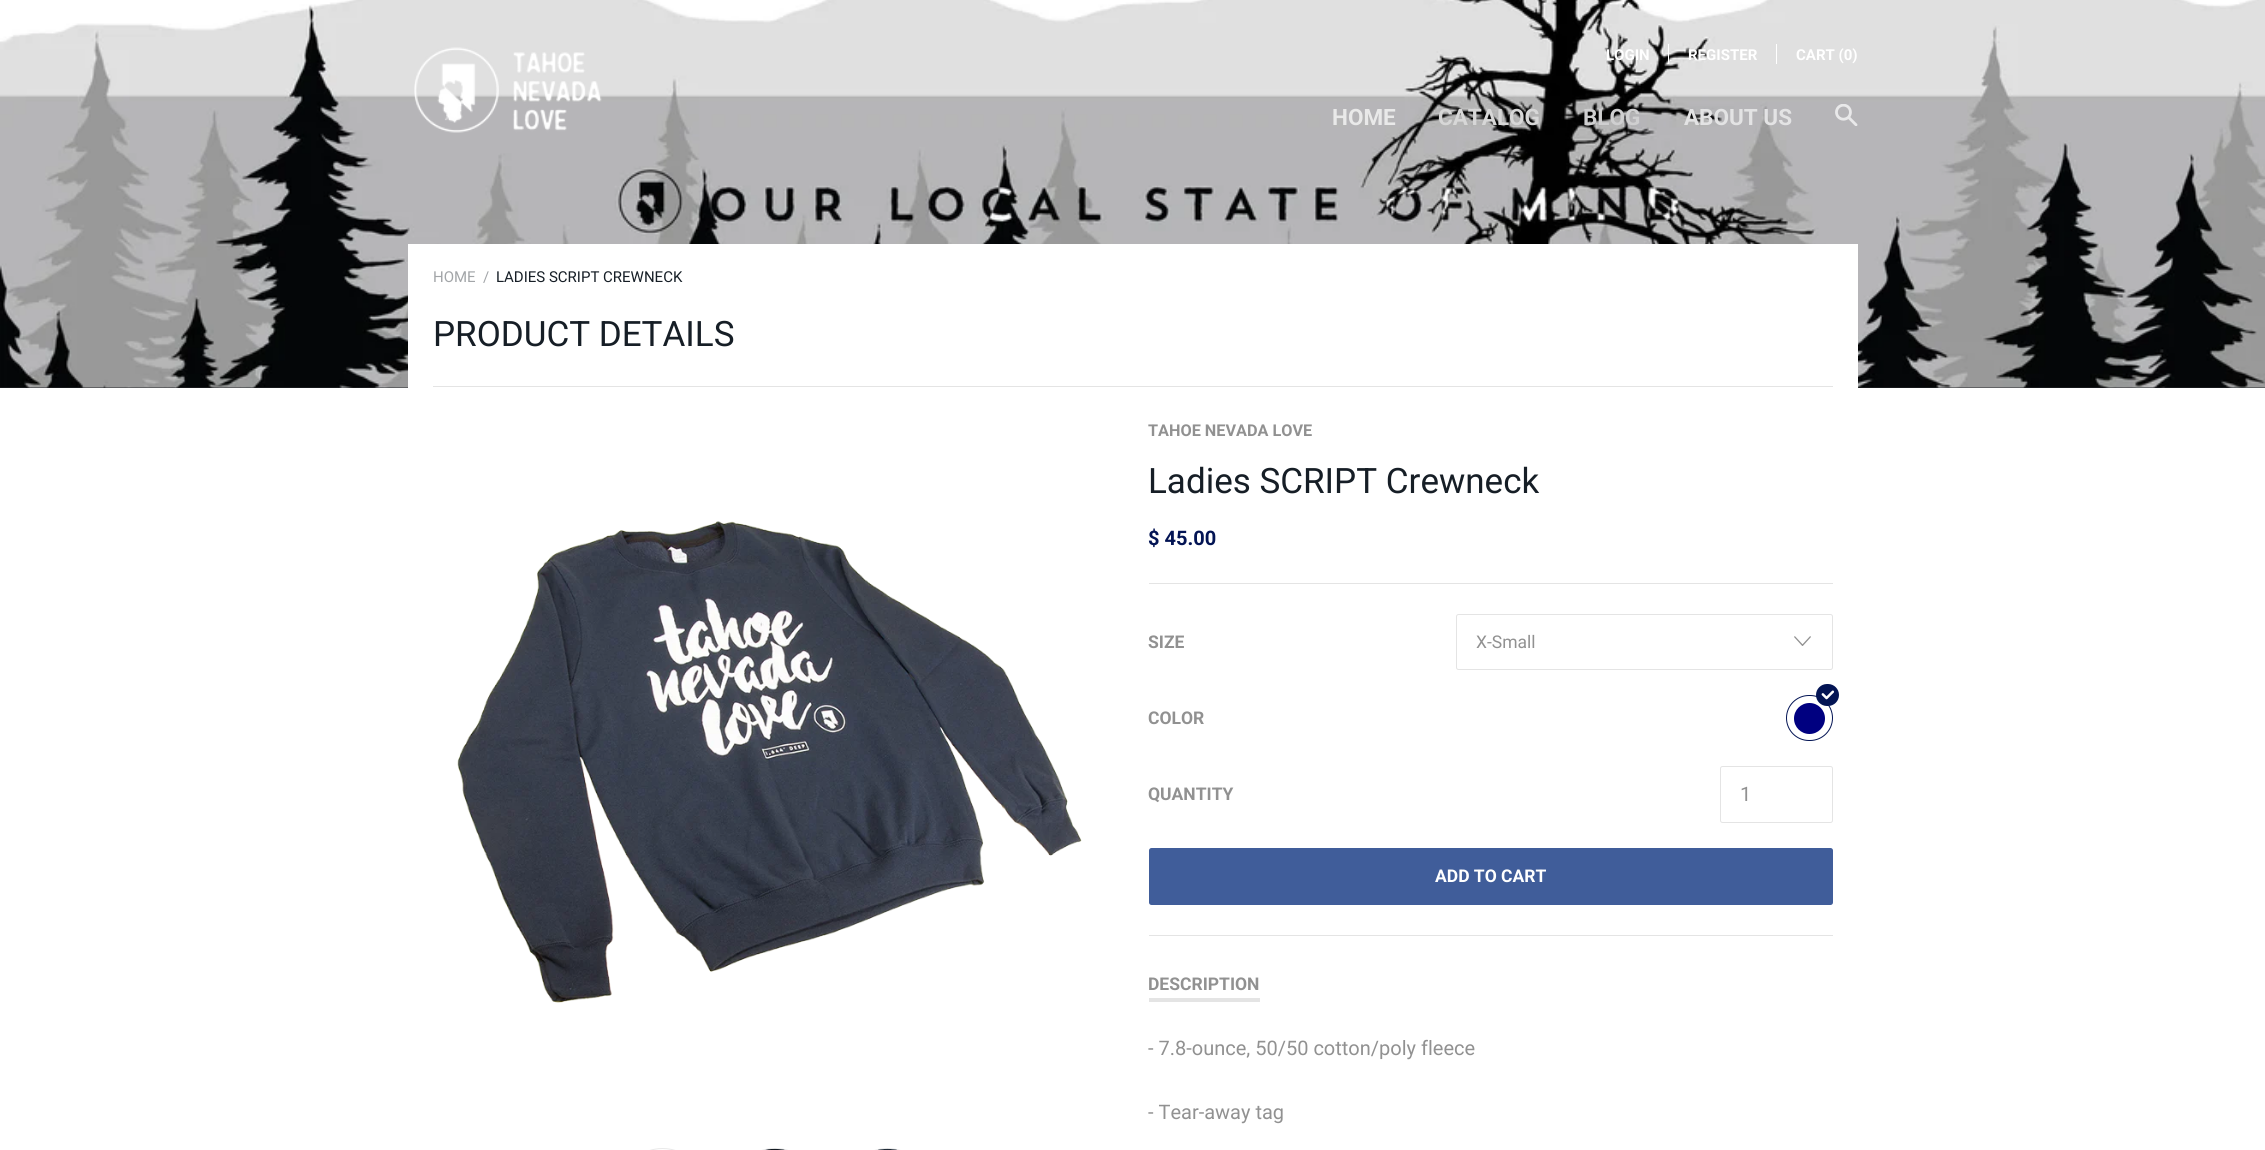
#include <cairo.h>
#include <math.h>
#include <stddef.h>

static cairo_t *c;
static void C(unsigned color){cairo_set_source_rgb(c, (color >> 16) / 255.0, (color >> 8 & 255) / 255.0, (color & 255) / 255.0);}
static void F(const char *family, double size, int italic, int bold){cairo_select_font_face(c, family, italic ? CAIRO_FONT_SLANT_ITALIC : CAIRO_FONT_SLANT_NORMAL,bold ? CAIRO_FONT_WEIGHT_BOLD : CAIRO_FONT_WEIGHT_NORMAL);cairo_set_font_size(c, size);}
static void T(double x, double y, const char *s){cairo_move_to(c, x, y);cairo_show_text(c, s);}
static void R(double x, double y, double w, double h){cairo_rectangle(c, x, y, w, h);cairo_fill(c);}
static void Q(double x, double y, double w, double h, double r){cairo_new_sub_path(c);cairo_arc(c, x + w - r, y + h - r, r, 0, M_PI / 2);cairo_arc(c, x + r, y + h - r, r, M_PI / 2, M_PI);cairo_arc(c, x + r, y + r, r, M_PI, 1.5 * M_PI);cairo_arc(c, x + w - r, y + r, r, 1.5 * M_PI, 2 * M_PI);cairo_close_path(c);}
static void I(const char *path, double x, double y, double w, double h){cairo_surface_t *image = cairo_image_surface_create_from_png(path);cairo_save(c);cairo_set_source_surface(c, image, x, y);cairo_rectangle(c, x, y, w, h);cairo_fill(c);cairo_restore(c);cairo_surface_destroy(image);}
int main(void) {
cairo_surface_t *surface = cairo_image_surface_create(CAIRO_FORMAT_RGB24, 2265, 1150);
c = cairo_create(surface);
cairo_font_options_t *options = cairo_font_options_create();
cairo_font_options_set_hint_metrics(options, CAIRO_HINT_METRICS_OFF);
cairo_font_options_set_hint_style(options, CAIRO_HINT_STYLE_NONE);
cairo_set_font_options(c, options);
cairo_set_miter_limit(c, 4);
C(0xffffff);
cairo_paint(c);
C(0x292a2f);
R(0,387,2265,1);
I("1.png",0,0,2265,388);
I("2.png",414,47,188,86);
F("Roboto",15,0,1);
C(0xffffff);
T(1606,60,"LOGIN");
R(1668,44,1,20);
T(1688,60,"REGISTER");
R(1776,44,1,20);
T(1796,60,"CART (0)");
F("Roboto",22.5,0,1);
C(0xe9e9e9);
T(1332,125,"HOME");
C(0xd7d7d7);
T(1438,125,"CATALOG");
C(0xcfcfd0);
T(1583,125,"BLOG");
C(0xe3e3e4);
T(1684,125,"ABOUT US");
I("3.png",1835,104,23,22);
C(0xffffff);
R(408,244,1450,144);
F("Roboto",15,0,0);
C(0xa2a5a8);
T(433,282,"HOME");
T(483,282,"/");
C(0x161e26);
T(496,282,"LADIES SCRIPT CREWNECK");
C(0xe4e4e4);
R(433,386,1400,1);
F("Roboto",35,0,0);
C(0x161e26);
T(433,346,"PRODUCT DETAILS");
I("4.png",457,521,625,482);
Q(619.5,1148.5,86,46,43);
C(0xe9e9e9);
cairo_set_line_width(c,1);
cairo_stroke(c);
Q(731.5,1148.5,87,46,43);
cairo_stroke(c);
I("5.png",765,1148,20,2);
Q(844.5,1148.5,86,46,43);
cairo_stroke(c);
I("6.png",878,1148,19,2);
C(0xe4e4e4);
R(1149,583,684,1);
F("Roboto",16.25,0,1);
C(0x919191);
T(1148,436,"TAHOE NEVADA LOVE");
F("Roboto",35,0,0);
C(0x161e26);
T(1148,493,"Ladies SCRIPT Crewneck");
F("Roboto",20,0,1);
C(0x031454);
T(1148,545,"$ 45.00");
F("Roboto",17.5,0,1);
C(0x919191);
T(1148,648,"SIZE");
Q(1456.5,614.5,376,55,2);
C(0xe4e4e4);
cairo_stroke(c);
F("Roboto",17.5,0,0);
C(0x919191);
T(1476,648,"X-Small");
I("7.png",1794,636,17,10);
F("Roboto",17.5,0,1);
T(1148,724,"COLOR");
Q(1786.5,695.5,46,45,22.5);
C(0x031454);
cairo_stroke(c);
C(0x000080);
cairo_arc(c,1809.5,718.5,15.5,0,2 * M_PI);
cairo_fill(c);
C(0x031454);
Q(1816,684,23,22,11);
cairo_fill(c);
I("8.png",1821,690,14,10);
C(0x919191);
T(1148,800,"QUANTITY");
Q(1720.5,766.5,112,56,2);
C(0xe4e4e4);
cairo_stroke(c);
F("Roboto",20,0,0);
C(0x919191);
T(1740,801,"1");
C(0x405d9a);
Q(1149,848,684,57,2.5);
cairo_fill(c);
F("Roboto",17.5,0,1);
C(0xffffff);
T(1435,882,"ADD TO CART");
C(0xe4e4e4);
R(1149,935,684,1);
R(1149,998,111,4);
C(0x919191);
T(1148,990,"DESCRIPTION");
F("Roboto",20,0,0);
T(1148,1055,"- 7.8-ounce, 50/50 cotton/poly fleece");
T(1148,1119,"- Tear-away tag");
cairo_surface_write_to_png(surface, "o.png");
cairo_font_options_destroy(options);
cairo_destroy(c);
cairo_surface_destroy(surface);
return 0;
}
